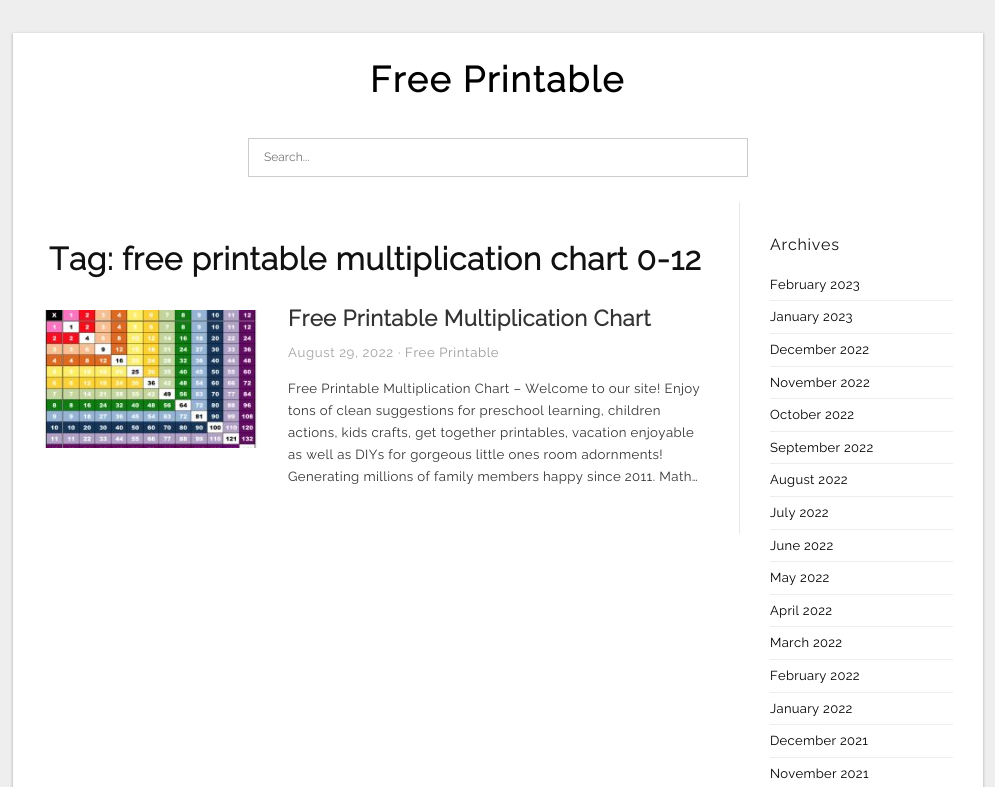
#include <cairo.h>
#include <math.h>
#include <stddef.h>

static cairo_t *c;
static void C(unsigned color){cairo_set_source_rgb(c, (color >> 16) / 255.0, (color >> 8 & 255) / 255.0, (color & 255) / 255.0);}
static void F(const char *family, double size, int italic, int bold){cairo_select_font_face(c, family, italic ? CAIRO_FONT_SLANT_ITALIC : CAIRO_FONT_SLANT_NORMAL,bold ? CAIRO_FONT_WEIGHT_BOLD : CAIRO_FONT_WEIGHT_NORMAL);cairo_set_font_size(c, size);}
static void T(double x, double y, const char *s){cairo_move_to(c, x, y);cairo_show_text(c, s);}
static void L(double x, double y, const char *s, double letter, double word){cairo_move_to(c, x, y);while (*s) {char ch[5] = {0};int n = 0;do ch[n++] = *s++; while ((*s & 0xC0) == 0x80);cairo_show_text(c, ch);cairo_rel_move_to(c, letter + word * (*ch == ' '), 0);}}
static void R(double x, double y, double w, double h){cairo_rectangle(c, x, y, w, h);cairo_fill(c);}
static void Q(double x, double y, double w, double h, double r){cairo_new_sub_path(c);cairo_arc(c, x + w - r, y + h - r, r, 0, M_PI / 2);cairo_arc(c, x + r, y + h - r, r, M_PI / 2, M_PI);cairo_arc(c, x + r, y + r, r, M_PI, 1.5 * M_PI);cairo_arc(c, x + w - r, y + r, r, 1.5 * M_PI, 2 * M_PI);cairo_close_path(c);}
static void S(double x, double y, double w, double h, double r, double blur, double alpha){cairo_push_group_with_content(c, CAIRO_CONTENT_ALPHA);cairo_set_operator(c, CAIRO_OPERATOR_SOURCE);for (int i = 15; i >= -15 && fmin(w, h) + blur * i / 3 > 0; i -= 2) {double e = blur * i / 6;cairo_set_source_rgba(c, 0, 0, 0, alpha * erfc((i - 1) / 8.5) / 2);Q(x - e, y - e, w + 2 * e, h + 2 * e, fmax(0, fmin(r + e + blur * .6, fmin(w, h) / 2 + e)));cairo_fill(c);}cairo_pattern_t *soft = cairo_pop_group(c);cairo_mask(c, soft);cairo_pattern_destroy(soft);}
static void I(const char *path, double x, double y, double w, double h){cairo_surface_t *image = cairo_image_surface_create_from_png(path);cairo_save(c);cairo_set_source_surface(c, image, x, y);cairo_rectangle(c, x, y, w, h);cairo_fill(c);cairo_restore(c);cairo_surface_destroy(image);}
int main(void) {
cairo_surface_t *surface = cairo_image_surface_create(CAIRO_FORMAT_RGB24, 995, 787);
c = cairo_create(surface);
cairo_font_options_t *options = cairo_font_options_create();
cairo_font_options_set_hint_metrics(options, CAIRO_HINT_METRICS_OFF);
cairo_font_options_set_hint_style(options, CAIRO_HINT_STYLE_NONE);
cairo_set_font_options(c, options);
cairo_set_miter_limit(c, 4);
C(0xeeeeee);
cairo_paint(c);
C(0x000000);
S(13,34,970,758,0,1.5,.3);
C(0xffffff);
R(13,33,970,754);
F("Raleway",36,0,1);
C(0x000000);
L(370,92,"Free Printable",1.5,0);
cairo_rectangle(c,248.5,138.5,499,38);
C(0xcccccc);
cairo_set_line_width(c,1);
cairo_stroke(c);
F("Raleway Thin",12,0,0);
C(0x757575);
T(264,161,"Search...");
C(0xe8e8e8);
R(739,202,1,332);
F("Raleway",32,0,1);
C(0x111111);
L(49,270,"Tag: free printable multiplication chart 0-12",.4,0);
I("1.png",43,310,215,138);
F("Raleway",22.4,0,1);
C(0x333333);
L(288,326,"Free Printable Multiplication Chart",.3,0);
F("Raleway Thin",13.2,0,0);
C(0xa2a2a2);
L(288,357,"August 29, 2022",.6,0);
L(398,357,"·",.6,0);
C(0x999999);
L(405,357,"Free Printable",.6,0);
C(0x333333);
L(288,393,"Free Printable Multiplication Chart – Welcome to our site! Enjoy",.4,0);
L(288,415,"tons of clean suggestions for preschool learning, children",.4,0);
L(288,437,"actions, kids crafts, get together printables, vacation enjoyable",.4,0);
L(288,459,"as well as DIYs for gorgeous little ones room adornments!",.4,0);
L(288,481,"Generating millions of family members happy since 2011. Math…",.4,0);
F("Raleway Thin",16,0,0);
C(0x111111);
L(770,250,"Archives",.75,0);
C(0xeeeeee);
R(770,300,183,1);
F("Raleway Thin",13,0,0);
C(0x000000);
L(770,289,"February 2023",.3,0);
C(0xeeeeee);
R(770,333,183,1);
C(0x000000);
L(770,321,"January 2023",.3,0);
C(0xeeeeee);
R(770,366,183,1);
C(0x000000);
L(770,354,"December 2022",.3,0);
C(0xeeeeee);
R(770,398,183,1);
C(0x000000);
L(770,387,"November 2022",.3,0);
C(0xeeeeee);
R(770,431,183,1);
C(0x000000);
L(770,419,"October 2022",.3,0);
C(0xeeeeee);
R(770,463,183,1);
C(0x000000);
L(770,452,"September 2022",.3,0);
C(0xeeeeee);
R(770,496,183,1);
C(0x000000);
L(770,484,"August 2022",.3,0);
C(0xeeeeee);
R(770,529,183,1);
C(0x000000);
L(770,517,"July 2022",.3,0);
C(0xeeeeee);
R(770,561,183,1);
C(0x000000);
L(770,550,"June 2022",.3,0);
C(0xeeeeee);
R(770,594,183,1);
C(0x000000);
L(770,582,"May 2022",.3,0);
C(0xeeeeee);
R(770,626,183,1);
C(0x000000);
L(770,615,"April 2022",.3,0);
C(0xeeeeee);
R(770,659,183,1);
C(0x000000);
L(770,647,"March 2022",.3,0);
C(0xeeeeee);
R(770,692,183,1);
C(0x000000);
L(770,680,"February 2022",.3,0);
C(0xeeeeee);
R(770,724,183,1);
C(0x000000);
L(770,713,"January 2022",.3,0);
C(0xeeeeee);
R(770,757,183,1);
C(0x000000);
L(770,745,"December 2021",.3,0);
L(770,778,"November 2021",.3,0);
cairo_surface_write_to_png(surface, "o.png");
cairo_font_options_destroy(options);
cairo_destroy(c);
cairo_surface_destroy(surface);
return 0;
}
